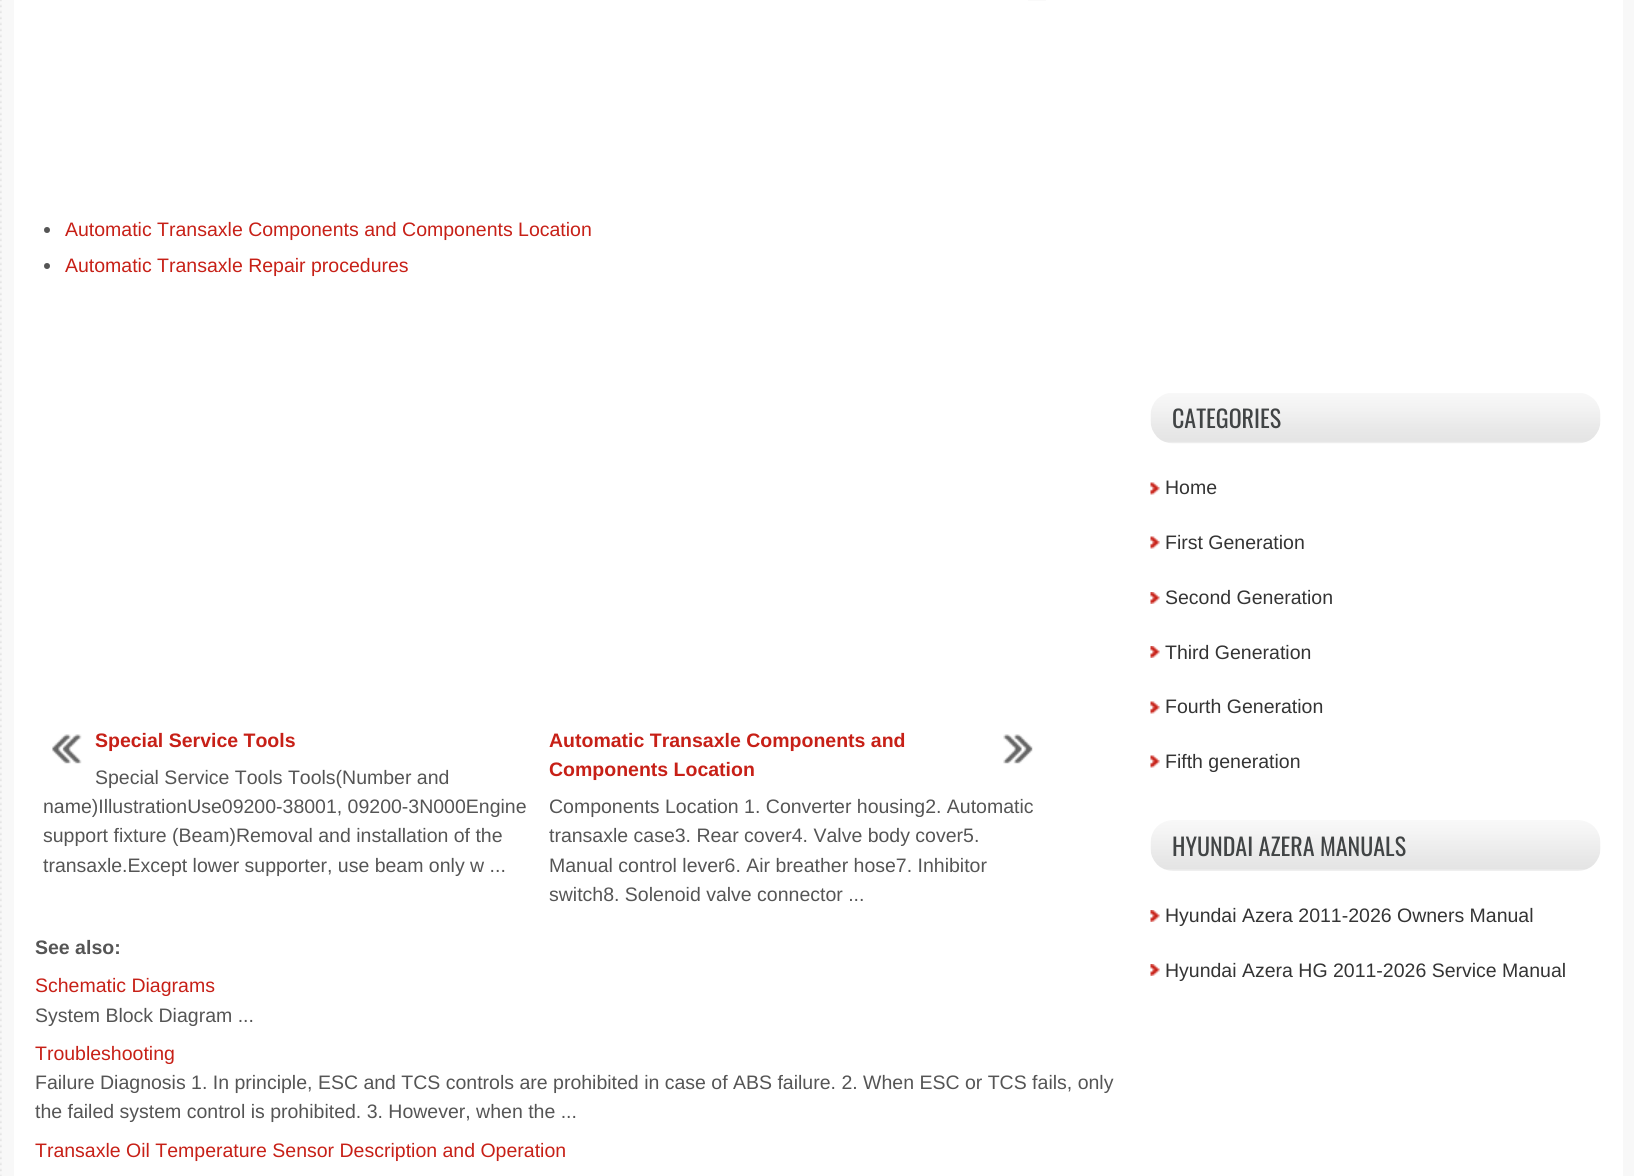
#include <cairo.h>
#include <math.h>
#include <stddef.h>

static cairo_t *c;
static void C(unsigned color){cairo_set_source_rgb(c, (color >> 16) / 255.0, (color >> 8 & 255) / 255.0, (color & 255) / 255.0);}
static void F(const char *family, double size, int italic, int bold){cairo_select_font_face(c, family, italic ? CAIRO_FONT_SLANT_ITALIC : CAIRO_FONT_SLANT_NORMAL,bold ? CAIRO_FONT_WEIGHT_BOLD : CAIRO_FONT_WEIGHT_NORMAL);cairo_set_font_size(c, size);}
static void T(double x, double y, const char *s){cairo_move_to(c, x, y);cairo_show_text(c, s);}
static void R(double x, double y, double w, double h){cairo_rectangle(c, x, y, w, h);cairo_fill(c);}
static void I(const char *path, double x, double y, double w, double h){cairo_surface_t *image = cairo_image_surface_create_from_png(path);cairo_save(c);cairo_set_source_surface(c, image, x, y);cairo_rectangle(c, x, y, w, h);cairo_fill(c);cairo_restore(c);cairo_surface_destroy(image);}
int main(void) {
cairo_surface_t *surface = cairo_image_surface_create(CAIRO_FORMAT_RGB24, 1634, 1176);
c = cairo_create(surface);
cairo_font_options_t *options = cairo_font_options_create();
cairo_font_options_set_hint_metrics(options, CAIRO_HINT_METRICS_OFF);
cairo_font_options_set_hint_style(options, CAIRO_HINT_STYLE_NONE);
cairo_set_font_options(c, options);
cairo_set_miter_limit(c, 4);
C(0xffffff);
cairo_paint(c);
I("1.png",0,0,1634,1176);
C(0xffffff);
R(14,0,1609,1176);
C(0xfafafa);
R(1028,0,18,1);
C(0x555555);
cairo_arc(c,47,230,3,0,2 * M_PI);
cairo_fill(c);
F("Liberation Sans",19.5,0,0);
C(0xc72017);
T(65,236,"Automatic Transaxle Components and Components Location");
C(0x555555);
cairo_new_path(c);
cairo_arc(c,47,266,3,0,2 * M_PI);
cairo_fill(c);
C(0xc72017);
T(65,272,"Automatic Transaxle Repair procedures");
I("2.png",52,734,30,30);
F("Liberation Sans",19.5,0,1);
T(95,747,"Special Service Tools");
F("Liberation Sans",19.5,0,0);
C(0x555555);
T(95,784,"Special Service Tools Tools(Number and");
T(43,813,"name)IllustrationUse09200-38001, 09200-3N000Engine");
T(43,842,"support fixture (Beam)Removal and installation of the");
T(43,872,"transaxle.Except lower supporter, use beam only w ...");
F("Liberation Sans",19.5,0,1);
C(0xc72017);
T(549,747,"Automatic Transaxle Components and");
I("3.png",1003,734,30,30);
T(549,776,"Components Location");
F("Liberation Sans",19.5,0,0);
C(0x555555);
T(549,813,"Components Location 1. Converter housing2. Automatic");
T(549,842,"transaxle case3. Rear cover4. Valve body cover5.");
T(549,872,"Manual control lever6. Air breather hose7. Inhibitor");
T(549,901,"switch8. Solenoid valve connector ...");
F("Liberation Sans",19.5,0,1);
T(35,954,"See also:");
F("Liberation Sans",19.5,0,0);
C(0xc72017);
T(35,992,"Schematic Diagrams");
C(0x555555);
T(35,1022,"System Block Diagram ...");
C(0xc72017);
T(35,1060,"Troubleshooting");
C(0x555555);
T(35,1089,"Failure Diagnosis 1. In principle, ESC and TCS controls are prohibited in case of ABS failure. 2. When ESC or TCS fails, only");
T(35,1118,"the failed system control is prohibited. 3. However, when the ...");
C(0xc72017);
T(35,1157,"Transaxle Oil Temperature Sensor Description and Operation");
I("4.png",1150,393,451,51);
F("Oswald",24,0,0);
C(0x414445);
T(1172,428,"CATEGORIES");
I("5.png",1150,482,10,13);
F("Liberation Sans",19.5,0,0);
C(0x343434);
T(1165,494,"Home");
I("5.png",1150,536,10,13);
T(1165,549,"First Generation");
I("6.png",1150,592,10,12);
T(1165,604,"Second Generation");
I("6.png",1150,646,10,12);
T(1165,659,"Third Generation");
I("5.png",1150,701,10,13);
T(1165,713,"Fourth Generation");
I("5.png",1150,755,10,13);
T(1165,768,"Fifth generation");
I("7.png",1150,820,451,51);
F("Oswald",24,0,0);
C(0x414445);
T(1172,856,"HYUNDAI AZERA MANUALS");
I("6.png",1150,910,10,12);
F("Liberation Sans",19.5,0,0);
C(0x343434);
T(1165,922,"Hyundai Azera 2011-2026 Owners Manual");
I("6.png",1150,964,10,12);
T(1165,977,"Hyundai Azera HG 2011-2026 Service Manual");
cairo_surface_write_to_png(surface, "o.png");
cairo_font_options_destroy(options);
cairo_destroy(c);
cairo_surface_destroy(surface);
return 0;
}
